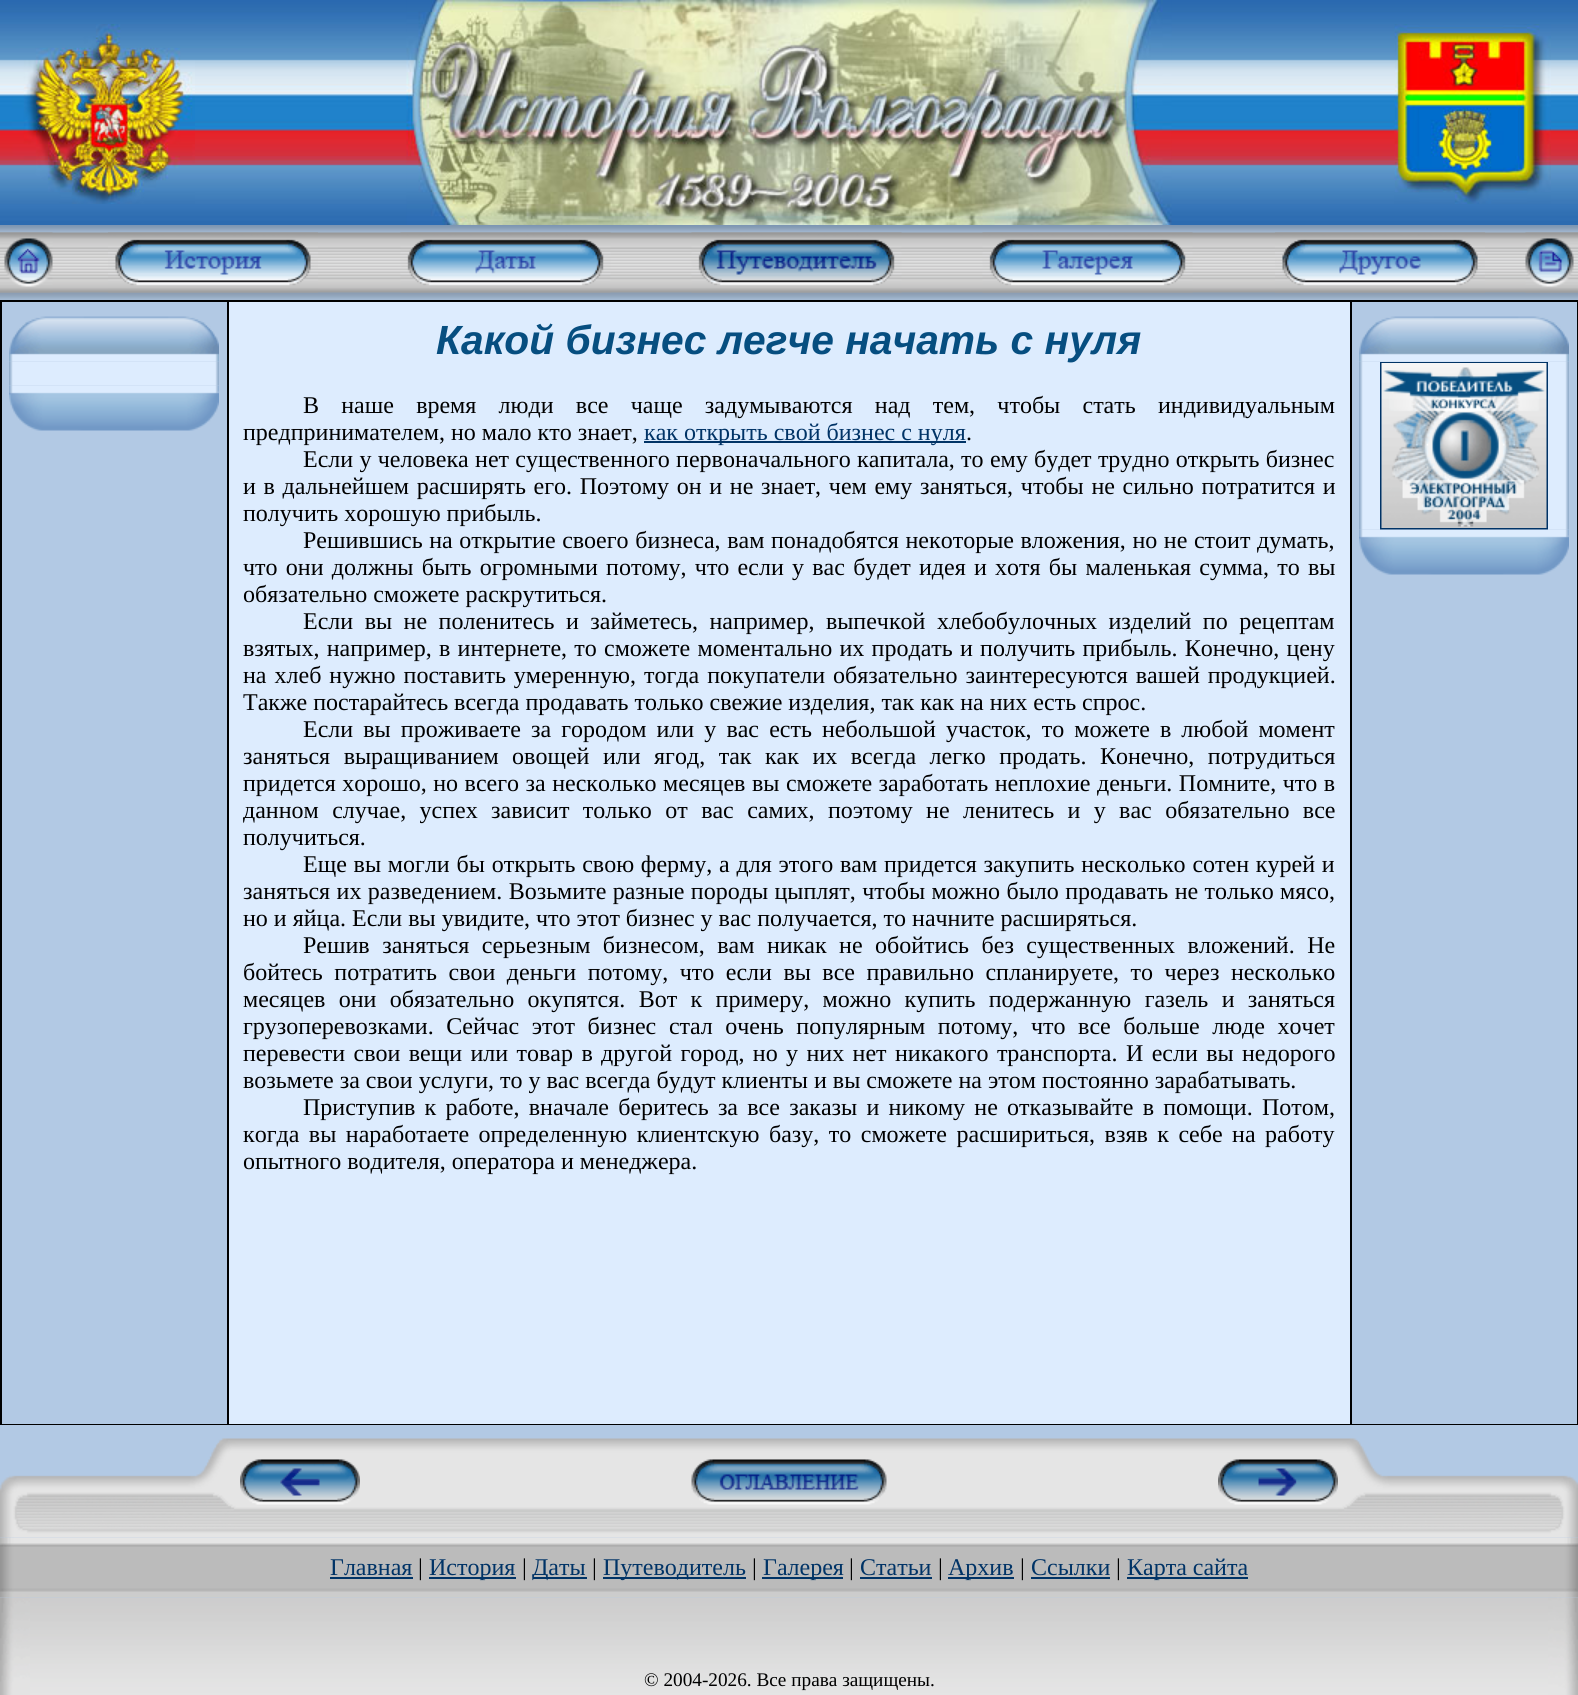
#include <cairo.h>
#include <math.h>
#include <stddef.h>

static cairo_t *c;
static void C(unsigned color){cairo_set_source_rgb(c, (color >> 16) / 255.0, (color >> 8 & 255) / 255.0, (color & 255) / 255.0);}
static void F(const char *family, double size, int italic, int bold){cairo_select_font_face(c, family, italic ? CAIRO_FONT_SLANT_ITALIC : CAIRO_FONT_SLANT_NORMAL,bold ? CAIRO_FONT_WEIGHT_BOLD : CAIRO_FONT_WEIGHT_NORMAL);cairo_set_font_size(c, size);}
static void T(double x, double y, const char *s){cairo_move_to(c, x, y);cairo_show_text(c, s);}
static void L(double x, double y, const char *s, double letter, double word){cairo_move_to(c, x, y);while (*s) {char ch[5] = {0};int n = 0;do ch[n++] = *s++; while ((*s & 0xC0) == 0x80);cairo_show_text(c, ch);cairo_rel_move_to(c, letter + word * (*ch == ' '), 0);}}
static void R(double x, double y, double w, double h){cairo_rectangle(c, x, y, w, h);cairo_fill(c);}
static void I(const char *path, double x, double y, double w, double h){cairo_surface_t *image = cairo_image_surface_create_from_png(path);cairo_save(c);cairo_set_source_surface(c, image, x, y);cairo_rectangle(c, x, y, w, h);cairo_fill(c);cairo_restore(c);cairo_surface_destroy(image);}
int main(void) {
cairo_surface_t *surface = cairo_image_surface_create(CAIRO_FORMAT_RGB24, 1578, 1695);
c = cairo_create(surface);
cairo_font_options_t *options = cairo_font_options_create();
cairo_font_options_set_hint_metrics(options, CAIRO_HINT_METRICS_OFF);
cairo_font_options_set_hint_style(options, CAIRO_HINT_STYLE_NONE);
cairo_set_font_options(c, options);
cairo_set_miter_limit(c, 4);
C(0xb2c9e4);
cairo_paint(c);
I("1.png",0,0,1578,225);
I("2.png",0,24,195,180);
I("3.png",406,0,766,225);
I("4.png",1394,24,157,180);
I("5.png",0,225,1578,75);
I("6.png",0,232,53,61);
I("7.png",108,232,210,61);
I("8.png",400,232,211,61);
I("9.png",691,232,211,61);
I("10.png",982,232,211,61);
I("11.png",1275,232,210,61);
I("12.png",1525,232,53,61);
C(0x000000);
R(1350,300,228,2);
R(1577,300,1,1125);
R(1350,1424,228,1);
R(1350,300,2,1125);
R(227,300,1125,2);
R(227,1424,1125,1);
R(227,300,2,1125);
R(0,300,228,2);
R(0,1424,228,1);
R(0,300,2,1125);
I("14.png",9,361,210,25);
I("13.png",9,316,210,46);
I("15.png",9,385,210,46);
C(0xddecfe);
R(229,302,1121,1122);
F("Liberation Sans",40.75,1,1);
C(0x064e80);
T(436,354,"Какой бизнес легче начать с нуля");
F("Liberation Serif",24,0,0);
C(0x000000);
L(303,413,"В наше время люди все чаще задумываются над тем, чтобы стать индивидуальным",0,16.25);
T(243,440,"предпринимателем, но мало кто знает,");
C(0x003366);
R(644,441,322,2);
T(644,440,"как открыть свой бизнес с нуля");
C(0x000000);
T(966,440,".");
L(303,467,"Если у человека нет существенного первоначального капитала, то ему будет трудно открыть бизнес",0,.3);
L(243,494,"и в дальнейшем расширять его. Поэтому он и не знает, чем ему заняться, чтобы не сильно потратится и",0,1.7);
T(243,521,"получить хорошую прибыль.");
L(303,548,"Решившись на открытие своего бизнеса, вам понадобятся некоторые вложения, но не стоит думать,",0,.6);
L(243,575,"что они должны быть огромными потому, что если у вас будет идея и хотя бы маленькая сумма, то вы",0,2.25);
T(243,602,"обязательно сможете раскрутиться.");
L(303,629,"Если вы не поленитесь и займетесь, например, выпечкой хлебобулочных изделий по рецептам",0,5.5);
L(243,656,"взятых, например, в интернете, то сможете моментально их продать и получить прибыль. Конечно, цену",0,1.25);
L(243,683,"на хлеб нужно поставить умеренную, тогда покупатели обязательно заинтересуются вашей продукцией.",0,2);
T(243,710,"Также постарайтесь всегда продавать только свежие изделия, так как на них есть спрос.");
L(303,737,"Если вы проживаете за городом или у вас есть небольшой участок, то можете в любой момент",0,4.1);
L(243,764,"заняться выращиванием овощей или ягод, так как их всегда легко продать. Конечно, потрудиться",0,7.5);
L(243,791,"придется хорошо, но всего за несколько месяцев вы сможете заработать неплохие деньги. Помните, что в",0,.5);
L(243,818,"данном случае, успех зависит только от вас самих, поэтому не ленитесь и у вас обязательно все",0,7.4);
T(243,845,"получиться.");
L(303,872,"Еще вы могли бы открыть свою ферму, а для этого вам придется закупить несколько сотен курей и",0,.8);
L(243,899,"заняться их разведением. Возьмите разные породы цыплят, чтобы можно было продавать не только мясо,",0,.4);
T(243,926,"но и яйца. Если вы увидите, что этот бизнес у вас получается, то начните расширяться.");
L(303,953,"Решив заняться серьезным бизнесом, вам никак не обойтись без существенных вложений. Не",0,6.5);
L(243,980,"бойтесь потратить свои деньги потому, что если вы все правильно спланируете, то через несколько",0,5.5);
L(243,1007,"месяцев они обязательно окупятся. Вот к примеру, можно купить подержанную газель и заняться",0,7.4);
L(243,1034,"грузоперевозками. Сейчас этот бизнес стал очень популярным потому, что все больше люде хочет",0,6.6);
L(243,1061,"перевести свои вещи или товар в другой город, но у них нет никакого транспорта. И если вы недорого",0,2.4);
T(243,1088,"возьмете за свои услуги, то у вас всегда будут клиенты и вы сможете на этом постоянно зарабатывать.");
L(303,1115,"Приступив к работе, вначале беритесь за все заказы и никому не отказывайте в помощи. Потом,",0,3.25);
L(243,1142,"когда вы наработаете определенную клиентскую базу, то сможете расшириться, взяв к себе на работу",0,3.5);
T(243,1169,"опытного водителя, оператора и менеджера.");
I("17.png",1359,361,210,169);
I("16.png",1359,316,210,46);
cairo_rectangle(c,1381,363,166,166);
C(0x003366);
cairo_stroke(c);
I("18.png",1381,363,166,165);
I("19.png",1359,529,210,46);
I("21.png",240,1425,1098,113);
I("27.png",30,1537,1518,61);
I("20.png",0,1425,240,113);
I("22.png",240,1459,120,46);
I("23.png",691,1459,196,46);
I("24.png",1218,1459,120,46);
I("25.png",1338,1425,240,113);
I("26.png",0,1537,30,61);
T(330,1575,"Главная");
R(330,1577,83,2);
C(0x000000);
T(418,1575,"|");
C(0x003366);
R(429,1577,87,2);
T(429,1575,"История");
C(0x000000);
T(522,1575,"|");
C(0x003366);
R(533,1577,54,2);
T(532,1575,"Даты");
C(0x000000);
T(592,1575,"|");
C(0x003366);
R(603,1577,143,2);
T(603,1575,"Путеводитель");
C(0x000000);
T(752,1575,"|");
C(0x003366);
R(762,1577,81,2);
T(763,1575,"Галерея");
C(0x000000);
T(849,1575,"|");
C(0x003366);
T(860,1575,"Статьи");
R(860,1577,72,2);
C(0x000000);
T(938,1575,"|");
C(0x003366);
R(948,1577,66,2);
T(948,1575,"Архив");
C(0x000000);
T(1020,1575,"|");
C(0x003366);
T(1031,1575,"Ссылки");
R(1031,1577,79,2);
C(0x000000);
T(1116,1575,"|");
C(0x003366);
R(1127,1577,121,2);
T(1127,1575,"Карта сайта");
I("28.png",1548,1537,30,61);
I("29.png",0,1597,30,98);
I("30.png",30,1597,1518,98);
F("Liberation Serif",19.25,0,0);
C(0x000000);
T(644,1686,"© 2004-2026. Все права защищены.");
I("31.png",1548,1597,30,98);
cairo_surface_write_to_png(surface, "o.png");
cairo_font_options_destroy(options);
cairo_destroy(c);
cairo_surface_destroy(surface);
return 0;
}
